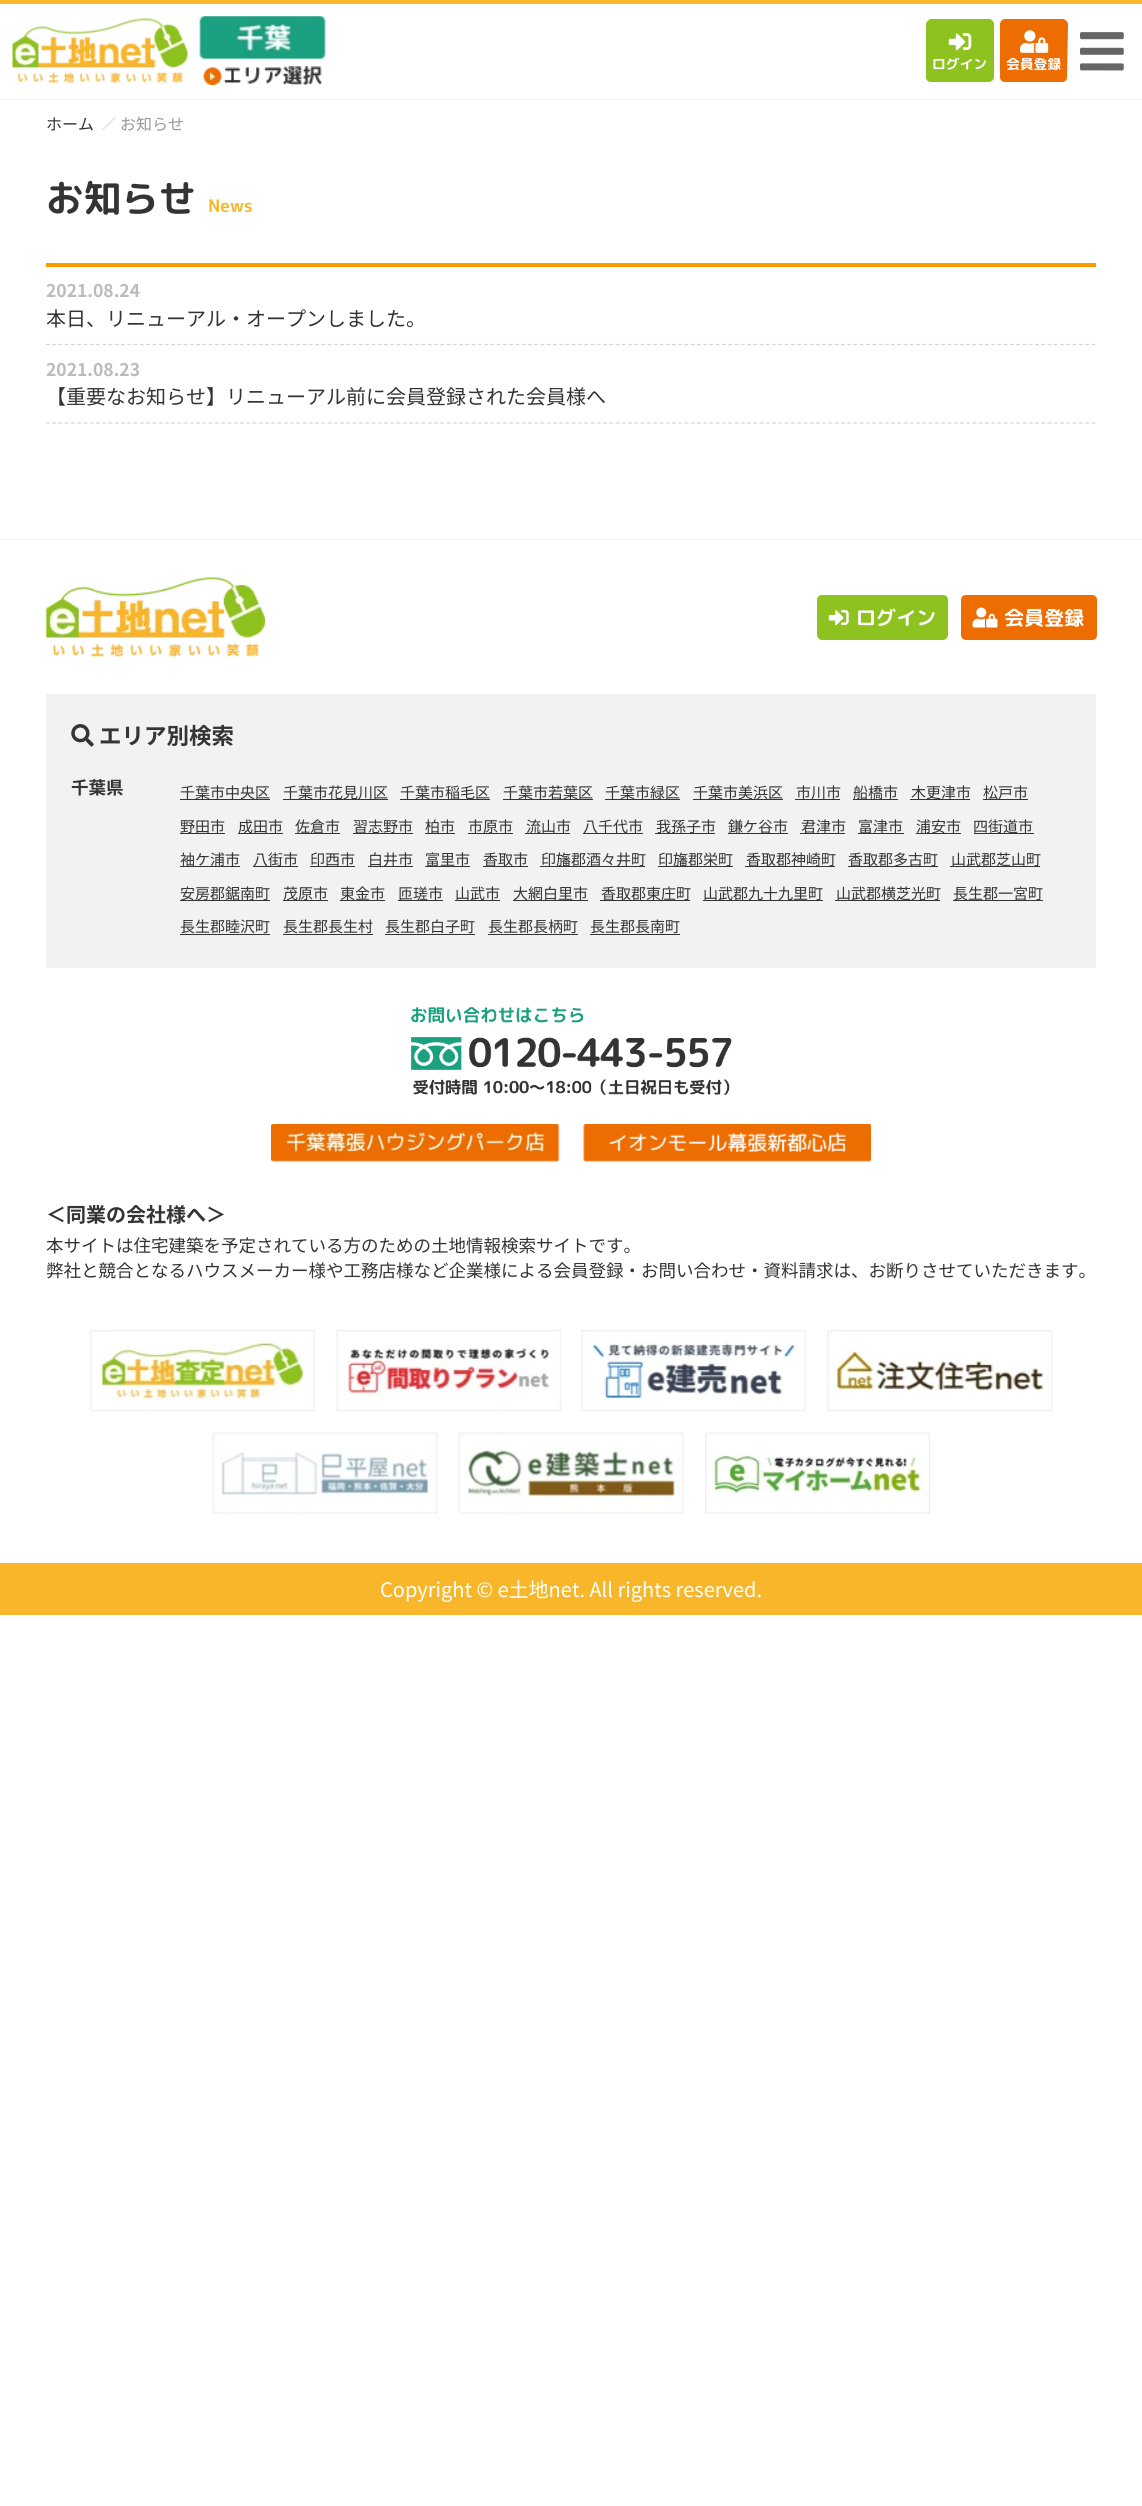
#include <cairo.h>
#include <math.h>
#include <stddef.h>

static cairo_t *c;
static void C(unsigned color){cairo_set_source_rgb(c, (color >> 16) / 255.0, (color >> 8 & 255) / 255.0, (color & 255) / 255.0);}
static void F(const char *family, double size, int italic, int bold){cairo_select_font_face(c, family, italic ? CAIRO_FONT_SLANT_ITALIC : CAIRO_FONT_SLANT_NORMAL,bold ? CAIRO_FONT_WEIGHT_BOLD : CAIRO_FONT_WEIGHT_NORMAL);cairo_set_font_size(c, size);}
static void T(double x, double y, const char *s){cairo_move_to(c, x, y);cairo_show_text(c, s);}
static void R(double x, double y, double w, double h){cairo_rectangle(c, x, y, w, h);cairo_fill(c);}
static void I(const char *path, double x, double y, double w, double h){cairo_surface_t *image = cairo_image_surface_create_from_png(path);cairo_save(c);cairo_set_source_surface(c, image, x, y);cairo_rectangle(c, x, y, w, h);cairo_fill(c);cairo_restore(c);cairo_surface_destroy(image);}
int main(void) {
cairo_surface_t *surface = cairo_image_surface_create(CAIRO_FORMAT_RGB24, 1142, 2506);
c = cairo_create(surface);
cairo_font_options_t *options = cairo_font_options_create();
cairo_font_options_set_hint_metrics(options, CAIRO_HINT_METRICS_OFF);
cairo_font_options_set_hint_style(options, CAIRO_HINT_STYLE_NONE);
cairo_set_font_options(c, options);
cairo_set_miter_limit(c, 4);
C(0xffffff);
cairo_paint(c);
C(0xf8b72b);
R(0,0,1142,4);
C(0xf2f2f2);
R(0,99,1142,1);
I("1.png",12,18,176,66);
I("2.png",199,16,127,44);
I("3.png",203,66,119,19);
C(0x8dc21f);
cairo_new_path(c);
cairo_move_to(c,931,19);
cairo_line_to(c,989,19);
cairo_curve_to(c,992,19,994,22,994,24);
cairo_line_to(c,994,77);
cairo_curve_to(c,994,80,991,82,989,82);
cairo_line_to(c,931,82);
cairo_curve_to(c,928,82,926,80,926,77);
cairo_line_to(c,926,24);
cairo_curve_to(c,926,22,929,19,931,19);
cairo_close_path(c);
cairo_fill(c);
I("4.png",948,33,24,18);
F("Rounded Mplus 1c Bold",13.75,0,1);
C(0xffffff);
T(932,69,"ログイン");
C(0xed6d00);
cairo_new_path(c);
cairo_move_to(c,1005,19);
cairo_line_to(c,1063,19);
cairo_curve_to(c,1065,19,1068,22,1068,24);
cairo_line_to(c,1067,77);
cairo_curve_to(c,1067,80,1065,82,1062,82);
cairo_line_to(c,1005,82);
cairo_curve_to(c,1002,82,1000,80,1000,77);
cairo_line_to(c,1000,24);
cairo_curve_to(c,1000,22,1002,19,1005,19);
cairo_close_path(c);
cairo_fill(c);
I("5.png",1020,30,29,23);
C(0xffffff);
T(1006,69,"会員登録");
I("6.png",1080,32,44,39);
F("Noto Sans JP",16,0,0);
C(0x343434);
T(46,130,"ホーム");
I("7.png",102,117,13,13);
C(0x999999);
T(120,130,"お知らせ");
F("Rounded Mplus 1c Bold",37.5,0,1);
C(0x343434);
T(46,212,"お知らせ");
F("Rounded Mplus 1c Bold",17.5,0,1);
C(0xf8b72b);
T(208,212,"News");
C(0xfe9900);
R(46,263,1050,4);
cairo_new_path(c);
cairo_move_to(c,46,344.5);
cairo_line_to(c,1096,344.5);
C(0xd6d6d6);
cairo_set_line_width(c,1.2);
cairo_set_dash(c,(double[]){3.75,2.51},2,0);
cairo_stroke(c);
F("Noto Sans JP",17.5,0,1);
C(0xbbbbbb);
T(46,297,"2021.08.24");
F("Noto Sans JP",20,0,0);
C(0x343434);
T(46,326,"本日、リニューアル・オープンしました。");
cairo_new_path(c);
cairo_move_to(c,46,423);
cairo_line_to(c,1096,423);
C(0xd6d6d6);
cairo_stroke(c);
F("Noto Sans JP",17.5,0,1);
C(0xbbbbbb);
T(46,376,"2021.08.23");
F("Noto Sans JP",20,0,0);
C(0x343434);
T(46,404,"【重要なお知らせ】リニューアル前に会員登録された会員様へ");
C(0xf2f2f2);
R(0,539,1142,1);
I("8.png",46,577,219,80);
C(0x8dc21f);
cairo_new_path(c);
cairo_move_to(c,822,595);
cairo_line_to(c,943,595);
cairo_curve_to(c,946,595,948,597,948,600);
cairo_line_to(c,948,635);
cairo_curve_to(c,948,637,946,640,943,640);
cairo_line_to(c,822,640);
cairo_curve_to(c,819,640,817,637,817,635);
cairo_line_to(c,817,600);
cairo_curve_to(c,817,597,819,595,822,595);
cairo_close_path(c);
cairo_fill(c);
I("9.png",828,609,21,17);
F("Rounded Mplus 1c Bold",20,0,1);
C(0xffffff);
T(856,625,"ログイン");
C(0xed6d00);
cairo_new_path(c);
cairo_move_to(c,966,595);
cairo_line_to(c,1092,595);
cairo_curve_to(c,1095,595,1097,597,1097,600);
cairo_line_to(c,1097,635);
cairo_curve_to(c,1097,638,1095,640,1092,640);
cairo_line_to(c,966,640);
cairo_curve_to(c,963,640,961,637,961,635);
cairo_line_to(c,961,600);
cairo_curve_to(c,961,597,963,595,966,595);
cairo_close_path(c);
cairo_fill(c);
I("10.png",972,607,26,21);
C(0xffffff);
T(1004,625,"会員登録");
C(0xf2f2f2);
R(46,694,1050,274);
I("11.png",71,724,23,23);
F("Noto Sans JP",22.5,0,1);
C(0x343434);
T(99,744,"エリア別検索");
F("Noto Sans JP",17.5,0,1);
T(71,794,"千葉県");
R(180,799,90,1);
F("Noto Sans JP",15,0,0);
T(180,798,"千葉市中央区");
R(283,799,105,1);
T(283,798,"千葉市花見川区");
R(400,799,90,1);
T(400,798,"千葉市稲毛区");
R(503,799,90,1);
T(503,798,"千葉市若葉区");
R(605,799,75,1);
T(605,798,"千葉市緑区");
R(693,799,90,1);
T(693,798,"千葉市美浜区");
R(795,799,45,1);
T(796,798,"市川市");
R(853,799,45,1);
T(853,798,"船橋市");
R(910,799,60,1);
T(911,798,"木更津市");
R(983,799,45,1);
T(983,798,"松戸市");
R(180,833,45,1);
T(180,832,"野田市");
R(238,833,45,1);
T(238,832,"成田市");
R(295,833,45,1);
T(295,832,"佐倉市");
R(353,833,60,1);
T(353,832,"習志野市");
R(425,833,30,1);
T(425,832,"柏市");
R(468,833,45,1);
T(468,832,"市原市");
R(525,833,45,1);
T(526,832,"流山市");
R(583,833,60,1);
T(583,832,"八千代市");
R(655,833,60,1);
T(656,832,"我孫子市");
R(728,833,60,1);
T(728,832,"鎌ケ谷市");
R(800,833,45,1);
T(801,832,"君津市");
R(858,833,46,1);
T(858,832,"富津市");
R(916,833,45,1);
T(916,832,"浦安市");
R(974,833,60,1);
T(973,832,"四街道市");
R(180,866,60,1);
T(180,865,"袖ケ浦市");
R(253,866,45,1);
T(253,865,"八街市");
R(310,866,45,1);
T(310,865,"印西市");
R(368,866,45,1);
T(368,865,"白井市");
R(425,866,45,1);
T(425,865,"富里市");
R(483,866,45,1);
T(483,865,"香取市");
R(540,866,105,1);
T(541,865,"印旛郡酒々井町");
R(658,866,75,1);
T(658,865,"印旛郡栄町");
R(745,866,90,1);
T(746,865,"香取郡神崎町");
R(848,866,90,1);
T(848,865,"香取郡多古町");
R(950,866,90,1);
T(951,865,"山武郡芝山町");
R(180,900,90,1);
T(180,899,"安房郡鋸南町");
R(283,900,45,1);
T(283,899,"茂原市");
R(340,900,45,1);
T(340,899,"東金市");
R(398,900,45,1);
T(398,899,"匝瑳市");
R(455,900,45,1);
T(455,899,"山武市");
R(513,900,75,1);
T(513,899,"大網白里市");
R(600,900,90,1);
T(601,899,"香取郡東庄町");
R(703,900,120,1);
T(703,899,"山武郡九十九里町");
R(835,900,105,1);
T(836,899,"山武郡横芝光町");
R(953,900,90,1);
T(953,899,"長生郡一宮町");
T(180,932,"長生郡睦沢町");
R(180,934,90,1);
T(283,932,"長生郡長生村");
R(283,934,90,1);
T(385,932,"長生郡白子町");
R(385,934,90,1);
T(488,932,"長生郡長柄町");
R(488,934,90,1);
T(590,932,"長生郡長南町");
R(590,934,90,1);
I("12.png",411,1007,321,88);
I("13.png",271,1124,289,38);
I("14.png",583,1124,288,38);
F("Noto Sans JP",20,0,1);
T(46,1222,"＜同業の会社様へ＞");
F("Noto Sans JP",17.5,0,0);
T(46,1252,"本サイトは住宅建築を予定されている方のための土地情報検索サイトです。");
T(46,1277,"弊社と競合となるハウスメーカー様や工務店様など企業様による会員登録・お問い合わせ・資料請求は、お断りさせていただきます。");
I("15.png",90,1330,225,82);
I("16.png",336,1330,226,82);
I("17.png",581,1330,225,82);
I("18.png",827,1330,226,82);
I("19.png",212,1432,226,82);
I("20.png",458,1432,226,82);
I("21.png",705,1432,225,82);
C(0xf8b72b);
R(0,1563,1142,52);
F("Noto Sans JP",20,0,0);
C(0xffffff);
T(380,1597,"Copyright © e土地net. All rights reserved.");
cairo_surface_write_to_png(surface, "o.png");
cairo_font_options_destroy(options);
cairo_destroy(c);
cairo_surface_destroy(surface);
return 0;
}
